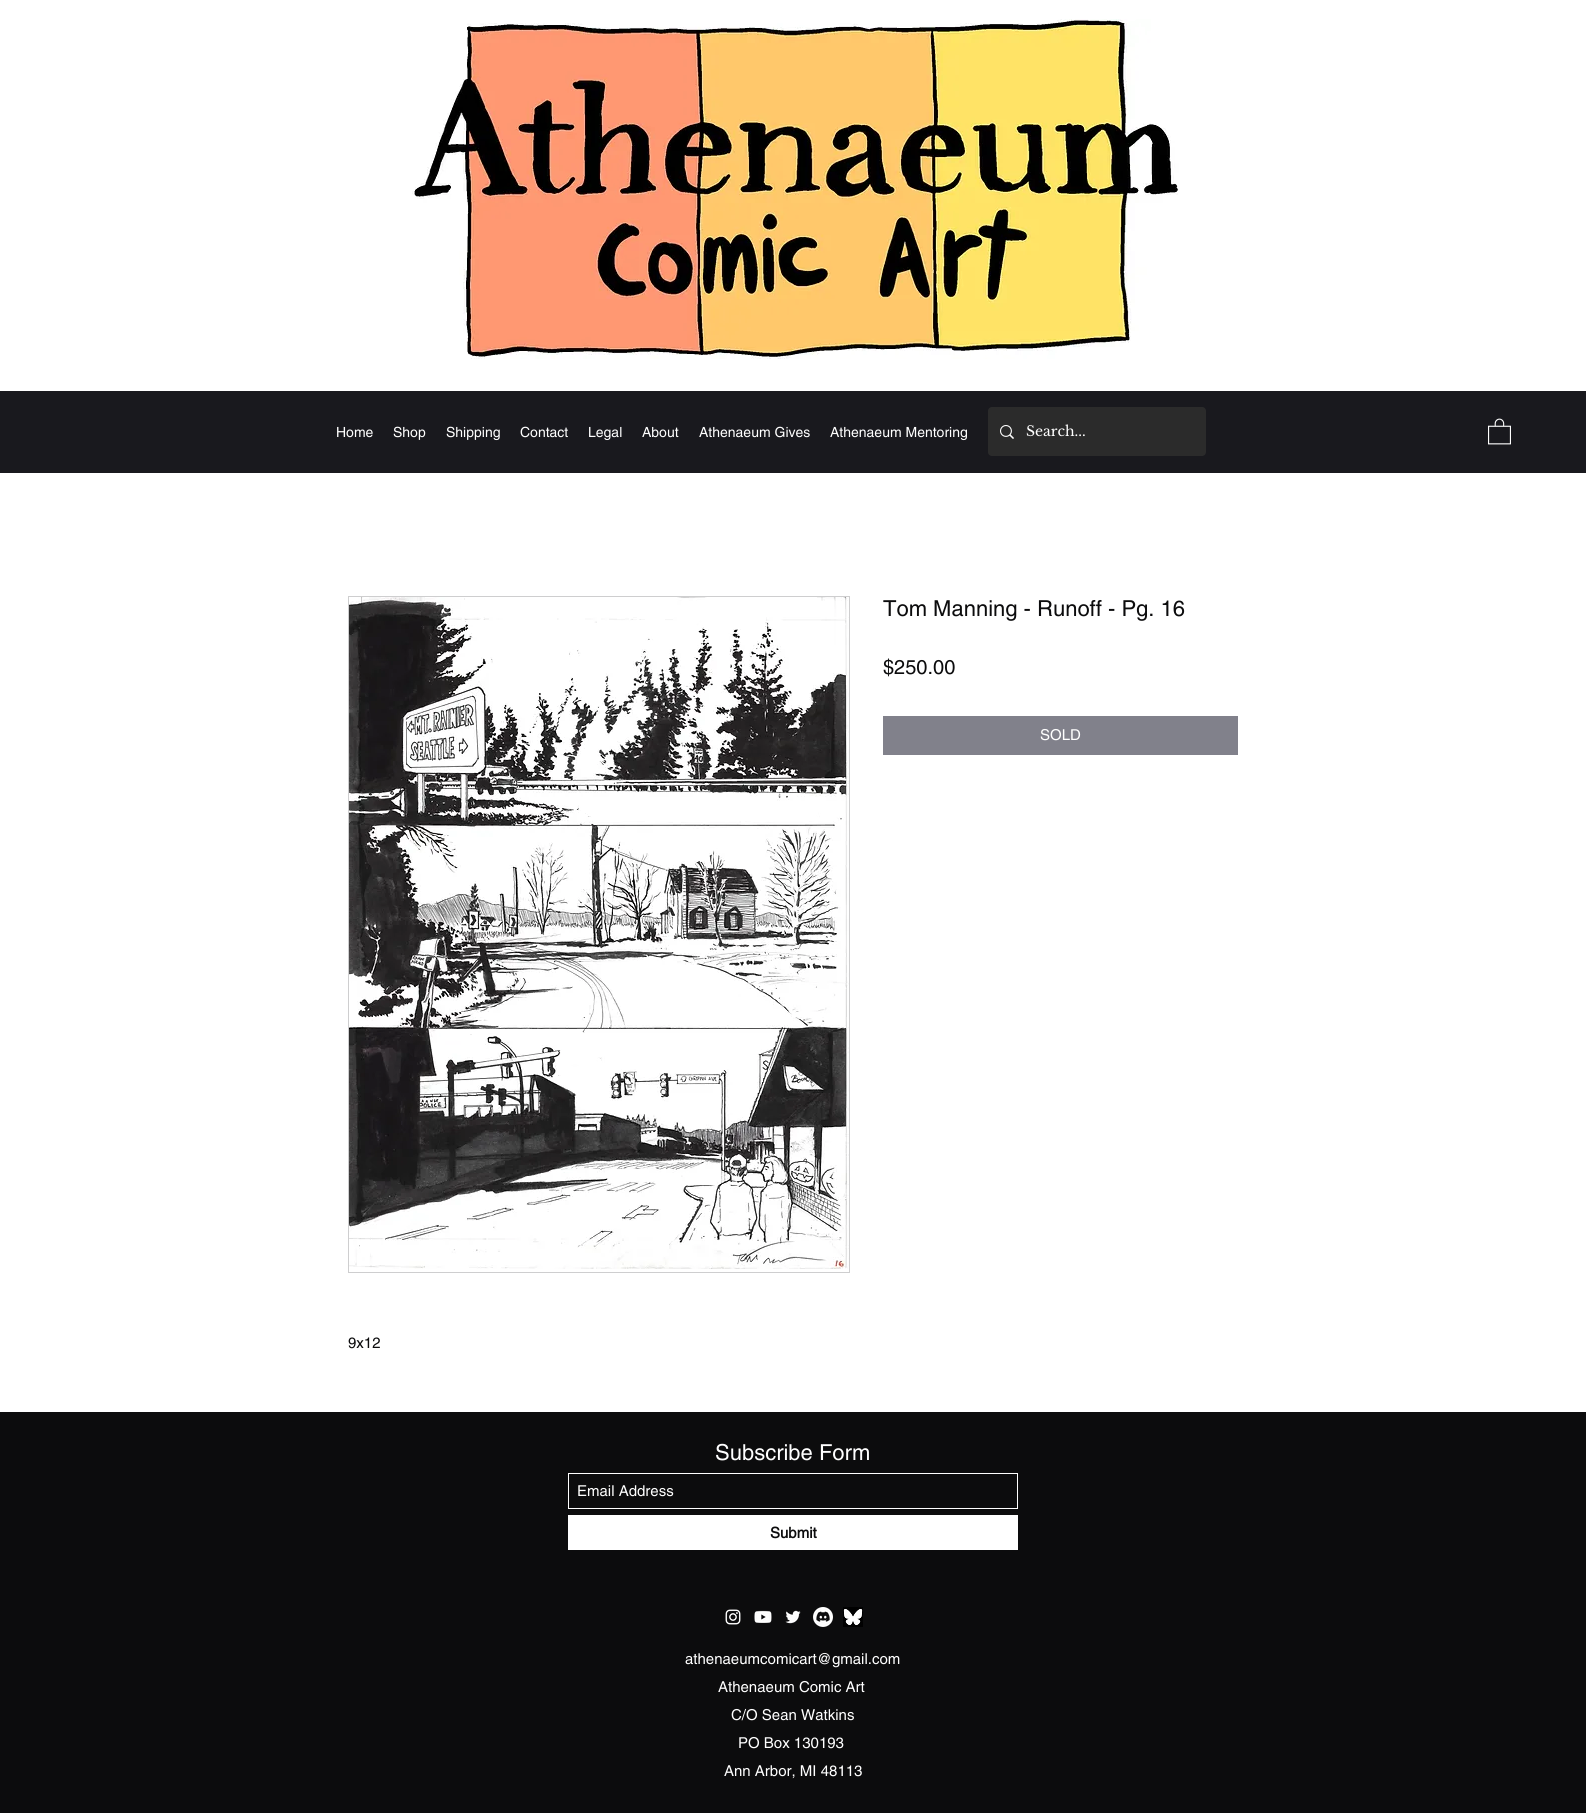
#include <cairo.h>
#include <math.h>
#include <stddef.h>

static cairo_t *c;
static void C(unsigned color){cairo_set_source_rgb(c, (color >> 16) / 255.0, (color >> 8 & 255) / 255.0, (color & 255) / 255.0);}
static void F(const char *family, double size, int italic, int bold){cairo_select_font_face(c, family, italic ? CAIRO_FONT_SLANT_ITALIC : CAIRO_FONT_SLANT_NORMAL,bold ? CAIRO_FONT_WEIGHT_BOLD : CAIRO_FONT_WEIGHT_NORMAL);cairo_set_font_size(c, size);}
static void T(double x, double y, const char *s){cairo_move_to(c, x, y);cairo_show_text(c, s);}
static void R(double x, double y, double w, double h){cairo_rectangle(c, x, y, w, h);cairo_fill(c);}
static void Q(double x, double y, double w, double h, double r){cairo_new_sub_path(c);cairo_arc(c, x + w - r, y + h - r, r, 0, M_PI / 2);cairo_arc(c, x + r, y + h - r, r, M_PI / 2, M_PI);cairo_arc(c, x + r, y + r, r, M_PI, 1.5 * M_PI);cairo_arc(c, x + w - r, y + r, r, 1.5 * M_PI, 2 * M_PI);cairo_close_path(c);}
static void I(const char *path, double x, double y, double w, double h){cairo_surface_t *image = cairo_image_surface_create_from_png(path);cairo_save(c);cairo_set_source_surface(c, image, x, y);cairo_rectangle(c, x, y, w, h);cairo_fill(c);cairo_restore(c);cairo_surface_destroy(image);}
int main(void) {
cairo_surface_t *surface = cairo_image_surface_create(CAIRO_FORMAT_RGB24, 1586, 1813);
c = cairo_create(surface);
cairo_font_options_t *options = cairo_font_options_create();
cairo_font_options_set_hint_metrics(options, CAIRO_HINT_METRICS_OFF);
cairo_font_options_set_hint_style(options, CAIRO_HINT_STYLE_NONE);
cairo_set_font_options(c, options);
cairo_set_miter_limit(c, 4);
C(0xffffff);
cairo_paint(c);
I("1.png",412,19,767,340);
C(0x19191e);
R(0,391,1586,82);
F("helvetica",14,0,0);
C(0xffffff);
T(336,437,"Home");
T(393,437,"Shop");
T(446,437,"Shipping");
T(520,437,"Contact");
T(588,437,"Legal");
T(642,437,"About");
T(699,437,"Athenaeum Gives");
T(830,437,"Athenaeum Mentoring");
C(0x2b2b2b);
Q(988,407,218,49,4);
cairo_fill(c);
I("2.png",1000,425,14,14);
F("Libre Baskerville",14,0,0);
C(0xffffff);
T(1026,436,"Search...");
I("3.png",1488,418,23,27);
F("helvetica",22,0,0);
C(0x0c0c0d);
T(883,616,"Tom Manning - Runoff - Pg. 16");
F("helvetica",20,0,0);
T(883,674,"$250.00");
C(0x81818b);
R(883,716,355,39);
F("helvetica",15,0,0);
C(0xffffff);
T(1040,740,"SOLD");
cairo_rectangle(c,348.5,596.5,501,676);
C(0xcececf);
cairo_set_line_width(c,1);
cairo_stroke(c);
I("4.png",349,597,500,672);
C(0x0c0c0d);
T(348,1348,"9x12");
R(0,1412,1586,401);
F("helvetica",22,0,0);
C(0xffffff);
T(715,1460,"Subscribe Form");
cairo_rectangle(c,568.5,1473.5,449,35);
cairo_stroke(c);
F("helvetica",15,0,0);
T(577,1496,"Email Address");
R(568,1515,450,35);
F("helvetica",15,0,1);
C(0x0c0c0d);
T(770,1538,"Submit");
I("5.png",725,1609,16,16);
I("6.png",754,1610,18,13);
I("7.png",785,1610,16,14);
I("8.png",813,1607,20,20);
I("9.png",843,1607,20,20);
F("helvetica",15,0,0);
C(0xffffff);
T(685,1664,"athenaeumcomicart@gmail.com");
T(718,1692,"Athenaeum Comic Art");
T(731,1720,"C/O Sean Watkins");
T(738,1748,"PO Box 130193");
T(724,1776,"Ann Arbor, MI 48113");
cairo_surface_write_to_png(surface, "o.png");
cairo_font_options_destroy(options);
cairo_destroy(c);
cairo_surface_destroy(surface);
return 0;
}
